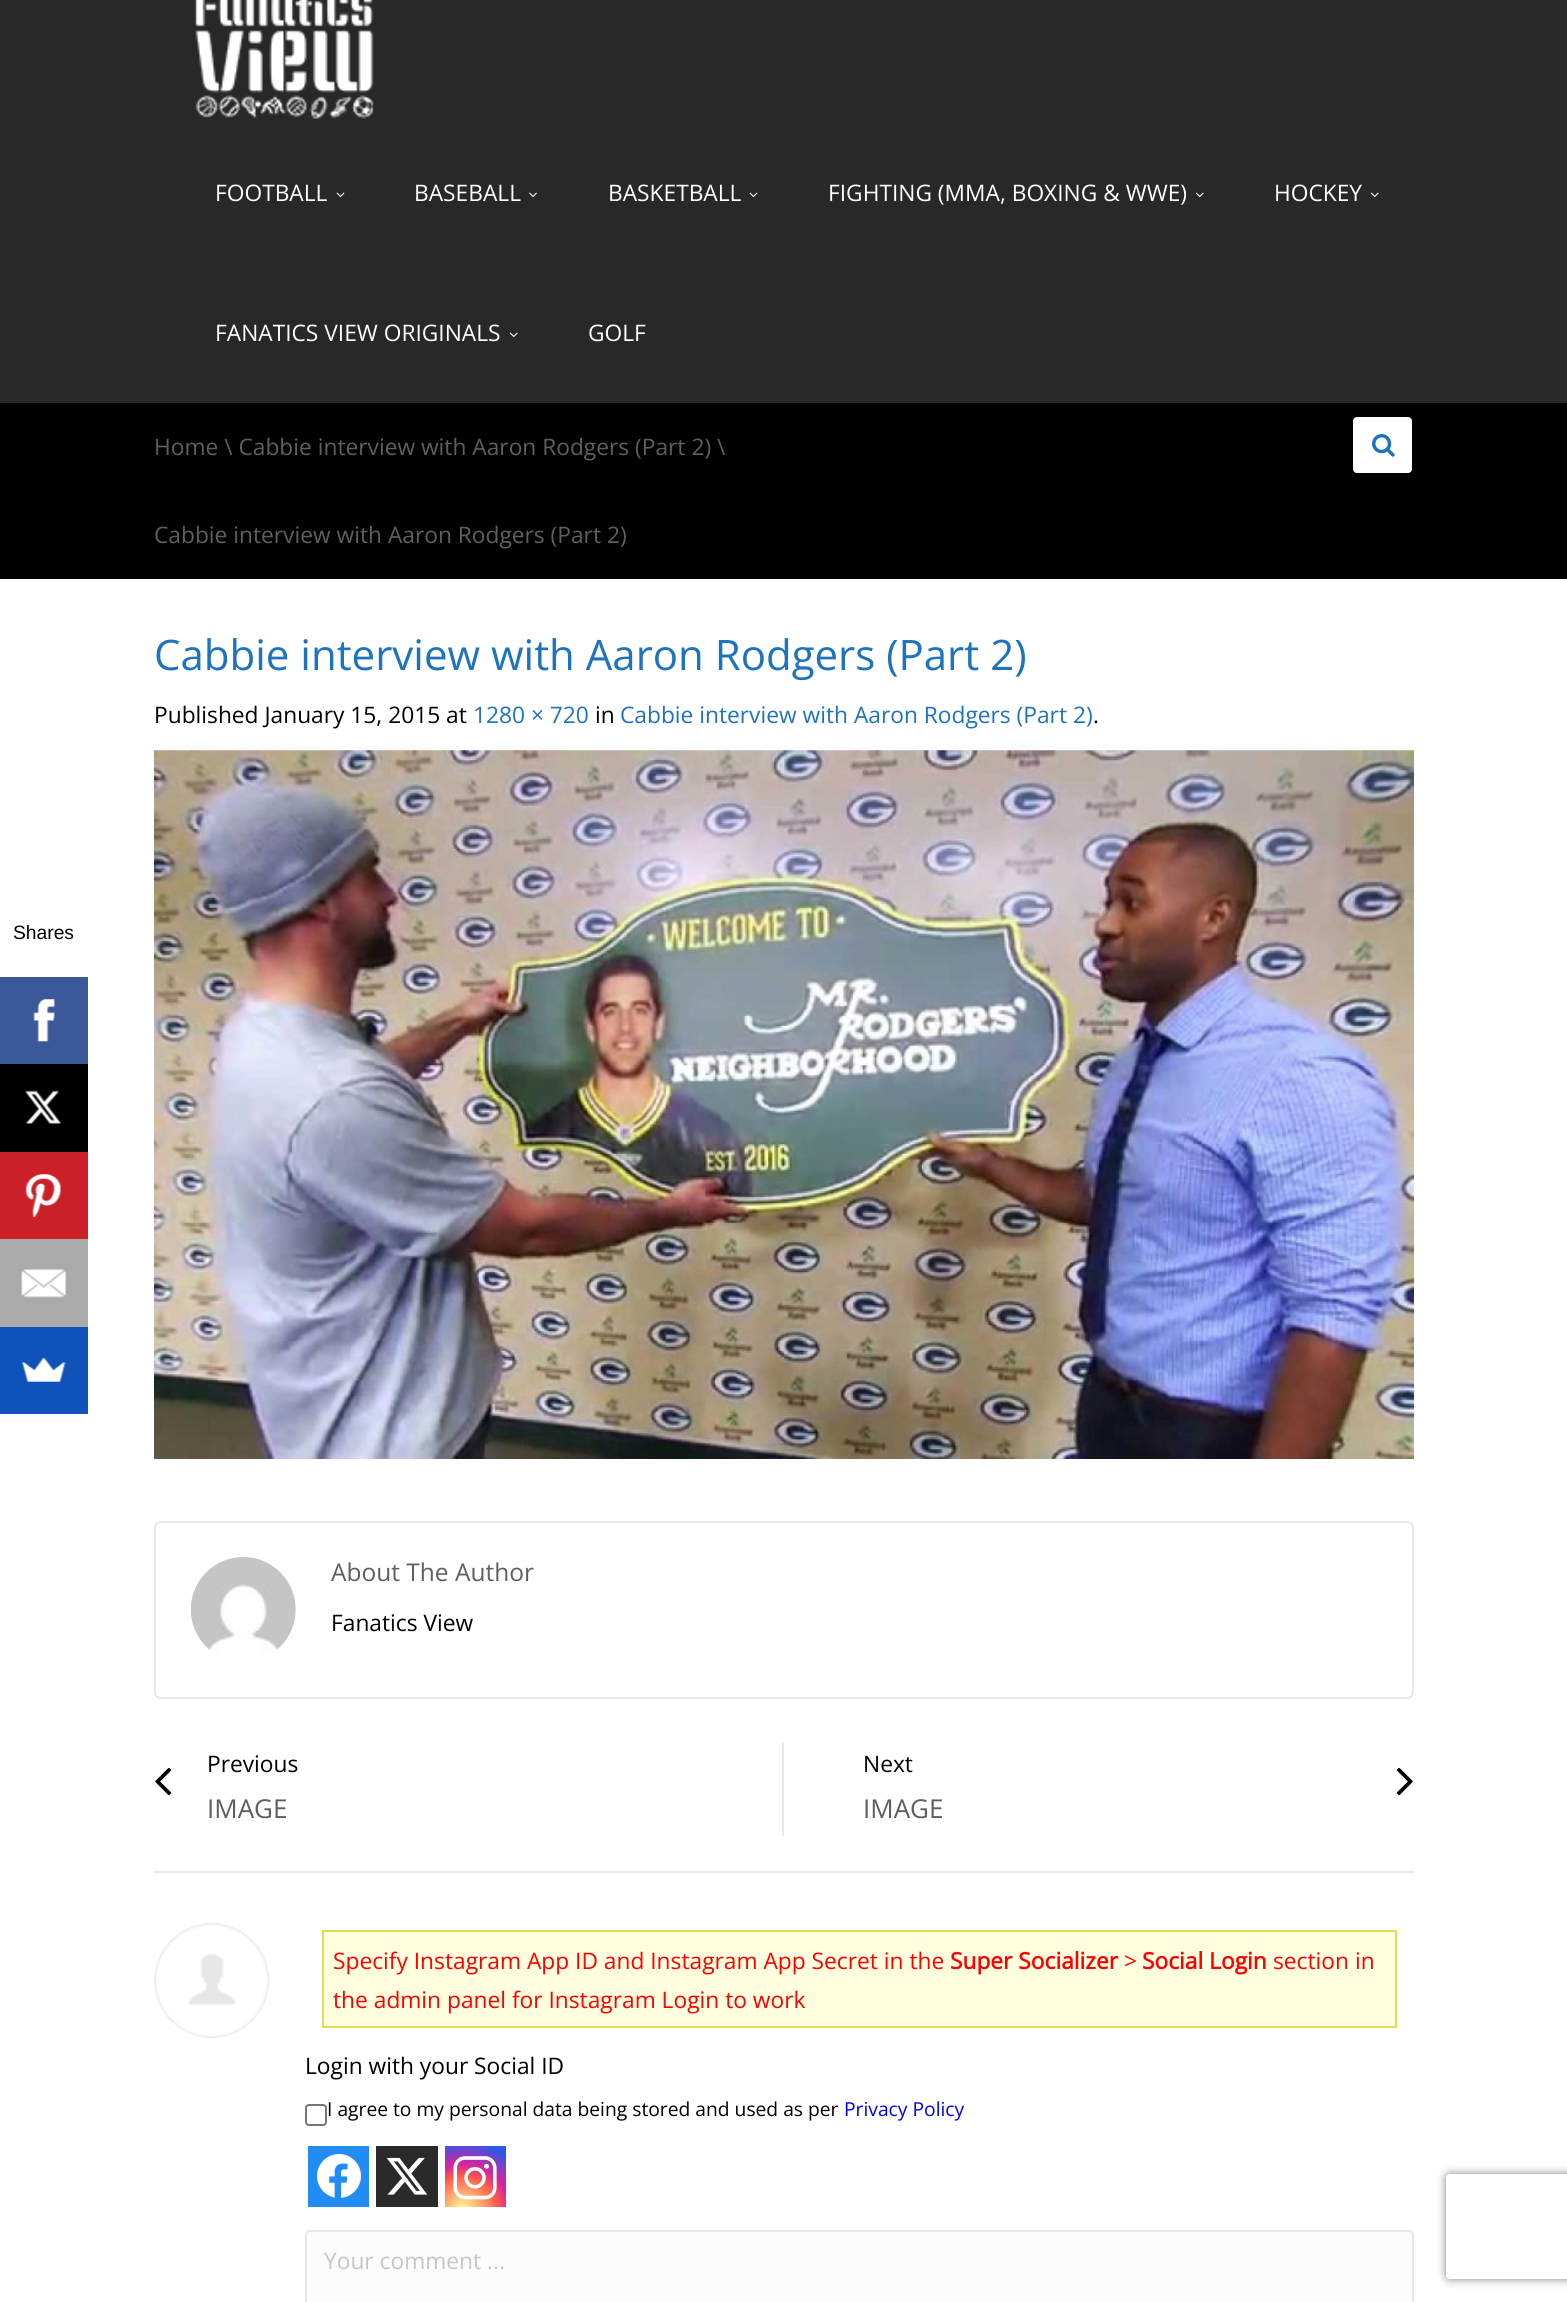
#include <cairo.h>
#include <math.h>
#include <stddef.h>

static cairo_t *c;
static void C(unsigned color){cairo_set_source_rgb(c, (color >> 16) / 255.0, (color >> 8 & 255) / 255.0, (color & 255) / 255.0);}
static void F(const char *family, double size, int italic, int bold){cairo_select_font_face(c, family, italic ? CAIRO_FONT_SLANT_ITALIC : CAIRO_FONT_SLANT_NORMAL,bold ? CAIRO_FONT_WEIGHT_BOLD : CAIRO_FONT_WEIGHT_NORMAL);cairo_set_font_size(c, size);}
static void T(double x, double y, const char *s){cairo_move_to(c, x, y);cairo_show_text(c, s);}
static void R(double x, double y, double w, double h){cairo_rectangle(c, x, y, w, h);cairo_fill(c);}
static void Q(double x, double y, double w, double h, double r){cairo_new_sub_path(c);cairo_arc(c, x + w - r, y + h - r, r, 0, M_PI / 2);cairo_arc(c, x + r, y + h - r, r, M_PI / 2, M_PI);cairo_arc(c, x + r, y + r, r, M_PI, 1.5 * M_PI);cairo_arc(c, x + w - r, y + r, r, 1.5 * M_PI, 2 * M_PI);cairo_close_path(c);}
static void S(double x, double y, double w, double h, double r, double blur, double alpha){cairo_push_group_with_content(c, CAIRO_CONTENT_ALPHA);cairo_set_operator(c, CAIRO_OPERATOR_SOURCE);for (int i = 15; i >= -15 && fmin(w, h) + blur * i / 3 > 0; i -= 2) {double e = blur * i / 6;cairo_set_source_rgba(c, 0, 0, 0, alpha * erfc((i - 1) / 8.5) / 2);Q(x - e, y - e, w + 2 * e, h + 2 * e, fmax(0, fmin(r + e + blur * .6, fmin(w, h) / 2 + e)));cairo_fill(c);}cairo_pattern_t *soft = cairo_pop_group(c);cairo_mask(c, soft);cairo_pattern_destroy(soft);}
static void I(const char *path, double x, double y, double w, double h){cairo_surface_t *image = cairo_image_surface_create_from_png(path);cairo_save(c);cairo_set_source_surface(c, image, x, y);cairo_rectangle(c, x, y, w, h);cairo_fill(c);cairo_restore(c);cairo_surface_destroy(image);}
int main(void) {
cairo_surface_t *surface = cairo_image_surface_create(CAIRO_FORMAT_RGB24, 1567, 2302);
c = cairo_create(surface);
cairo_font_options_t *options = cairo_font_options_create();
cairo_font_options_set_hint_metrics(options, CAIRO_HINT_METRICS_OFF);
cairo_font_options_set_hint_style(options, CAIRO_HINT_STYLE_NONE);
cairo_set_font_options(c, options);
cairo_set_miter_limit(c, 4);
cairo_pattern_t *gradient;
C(0xffffff);
cairo_paint(c);
F("Liberation Sans",19.25,0,0);
C(0x000000);
T(13,939,"Shares");
C(0x3b5998);
R(0,977,88,87);
I("1.png",33,999,22,43);
C(0x000000);
R(0,1064,88,88);
I("2.png",25,1090,36,34);
C(0xcb2027);
R(0,1152,88,87);
I("3.png",25,1174,36,44);
C(0xaaaaaa);
R(0,1239,88,88);
I("4.png",21,1269,46,29);
C(0x0f52ba);
R(0,1327,88,87);
I("5.png",22,1358,44,24);
C(0x282828);
R(0,0,1567,403);
I("6.png",195,0,179,119);
F("Open Sans",22.75,0,0);
C(0xffffff);
T(215,201,"FOOTBALL");
I("7.png",336,192,9,6);
T(414,201,"BASEBALL");
I("8.png",529,192,8,6);
T(608,201,"BASKETBALL");
I("7.png",749,192,9,6);
T(828,201,"FIGHTING (MMA, BOXING & WWE)");
I("9.png",1195,192,9,6);
T(1274,201,"HOCKEY");
I("9.png",1370,192,9,6);
T(215,341,"FANATICS VIEW ORIGINALS");
I("9.png",509,332,9,6);
T(588,341,"GOLF");
C(0x000000);
R(0,403,1567,176);
C(0x5f5f5f);
T(154,455,"Home \\ Cabbie interview with Aaron Rodgers (Part 2) \\");
T(154,543,"Cabbie interview with Aaron Rodgers (Part 2)");
C(0xffffff);
Q(1353,417,59,56,4);
cairo_fill(c);
I("10.png",1372,434,23,23);
F("Open Sans",42,0,0);
C(0x1e73be);
T(154,670,"Cabbie interview with Aaron Rodgers (Part 2)");
F("Open Sans",22.75,0,0);
C(0x000000);
T(154,723,"Published January 15, 2015 at");
C(0x1e73be);
T(473,723,"1280 × 720");
C(0x000000);
T(595,723,"in");
C(0x1e73be);
T(620,723,"Cabbie interview with Aaron Rodgers (Part 2)");
C(0x000000);
T(1093,723,".");
I("11.png",154,750,1260,709);
Q(155,1522,1258,176,6);
C(0xe7e7e7);
cairo_stroke(c);
I("12.png",190,1557,106,96);
F("Open Sans",24.5,0,0);
C(0x5f5f5f);
T(331,1581,"About The Author");
F("Open Sans",22.75,0,0);
C(0x000000);
T(331,1631,"Fanatics View");
C(0xe7e7e7);
R(154,1871,1260,2);
R(782,1743,2,93);
I("13.png",155,1767,17,29);
C(0x000000);
T(207,1772,"Previous");
F("Open Sans",26,0,0);
C(0x5f5f5f);
T(207,1818,"IMAGE");
F("Open Sans",22.75,0,0);
C(0x000000);
T(863,1772,"Next");
F("Open Sans",26,0,0);
C(0x5f5f5f);
T(863,1818,"IMAGE");
I("14.png",1396,1767,17,29);
I("15.png",154,1923,116,115);
C(0xffffe0);
cairo_rectangle(c,323,1931,1073,96);
cairo_fill_preserve(c);
C(0xe6db55);
cairo_stroke(c);
F("Open Sans",22.75,0,0);
C(0xff0000);
T(333,1969,"Specify Instagram App ID and Instagram App Secret in the");
F("Open Sans",22.75,0,1);
T(950,1969,"Super Socializer");
F("Open Sans",22.75,0,0);
T(1124,1969,">");
F("Open Sans",22.75,0,1);
T(1142,1969,"Social Login");
F("Open Sans",22.75,0,0);
T(1273,1969,"section in");
T(333,2008,"the admin panel for Instagram Login to work");
C(0x000000);
T(305,2074,"Login with your Social ID");
Q(306,2105,20,20,3);
C(0x767676);
cairo_stroke(c);
F("Open Sans",19.25,0,0);
C(0x000000);
T(327,2116,"I agree to my personal data being stored and used as per");
C(0x0000ff);
T(844,2116,"Privacy Policy");
C(0x218cf2);
R(308,2146,61,61);
C(0xffffff);
cairo_new_path(c);
cairo_arc(c,339,2176,22,0,2 * M_PI);
cairo_fill(c);
I("16.png",329,2163,19,35);
C(0x2a2a2a);
R(376,2146,62,61);
I("17.png",386,2157,42,38);
gradient = cairo_pattern_create_radial(463,2211,0,463,2211,78);
cairo_pattern_add_color_stop_rgba(gradient,0,0.992,0.957,0.592,1);
cairo_pattern_add_color_stop_rgba(gradient,.05,0.992,0.957,0.592,1);
cairo_pattern_add_color_stop_rgba(gradient,.45,0.992,0.349,0.286,1);
cairo_pattern_add_color_stop_rgba(gradient,.6,0.839,0.141,0.624,1);
cairo_pattern_add_color_stop_rgba(gradient,.9,0.157,0.353,0.922,1);
cairo_set_source(c,gradient);
cairo_pattern_destroy(gradient);
R(445,2146,61,61);
I("18.png",453,2156,44,44);
C(0xfcfcfc);
Q(306,2231,1107,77,4);
cairo_fill_preserve(c);
C(0xe7e7e7);
cairo_stroke(c);
F("Open Sans",22.75,0,0);
C(0xc6c6c6);
T(324,2269,"Your comment ...");
cairo_save(c);
cairo_set_fill_rule(c,CAIRO_FILL_RULE_EVEN_ODD);
cairo_new_path(c);
cairo_move_to(c,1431,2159);
cairo_line_to(c,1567,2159);
cairo_line_to(c,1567,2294);
cairo_line_to(c,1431,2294);
cairo_close_path(c);
cairo_move_to(c,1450,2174);
cairo_line_to(c,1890,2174);
cairo_curve_to(c,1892,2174,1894,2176,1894,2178);
cairo_line_to(c,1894,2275);
cairo_curve_to(c,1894,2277,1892,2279,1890,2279);
cairo_line_to(c,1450,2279);
cairo_curve_to(c,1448,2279,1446,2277,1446,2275);
cairo_line_to(c,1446,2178);
cairo_curve_to(c,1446,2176,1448,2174,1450,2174);
cairo_close_path(c);
cairo_clip(c);
C(0x808080);
S(1446,2174,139,105,4,4.5,1);
cairo_restore(c);
cairo_surface_write_to_png(surface, "o.png");
cairo_font_options_destroy(options);
cairo_destroy(c);
cairo_surface_destroy(surface);
return 0;
}
